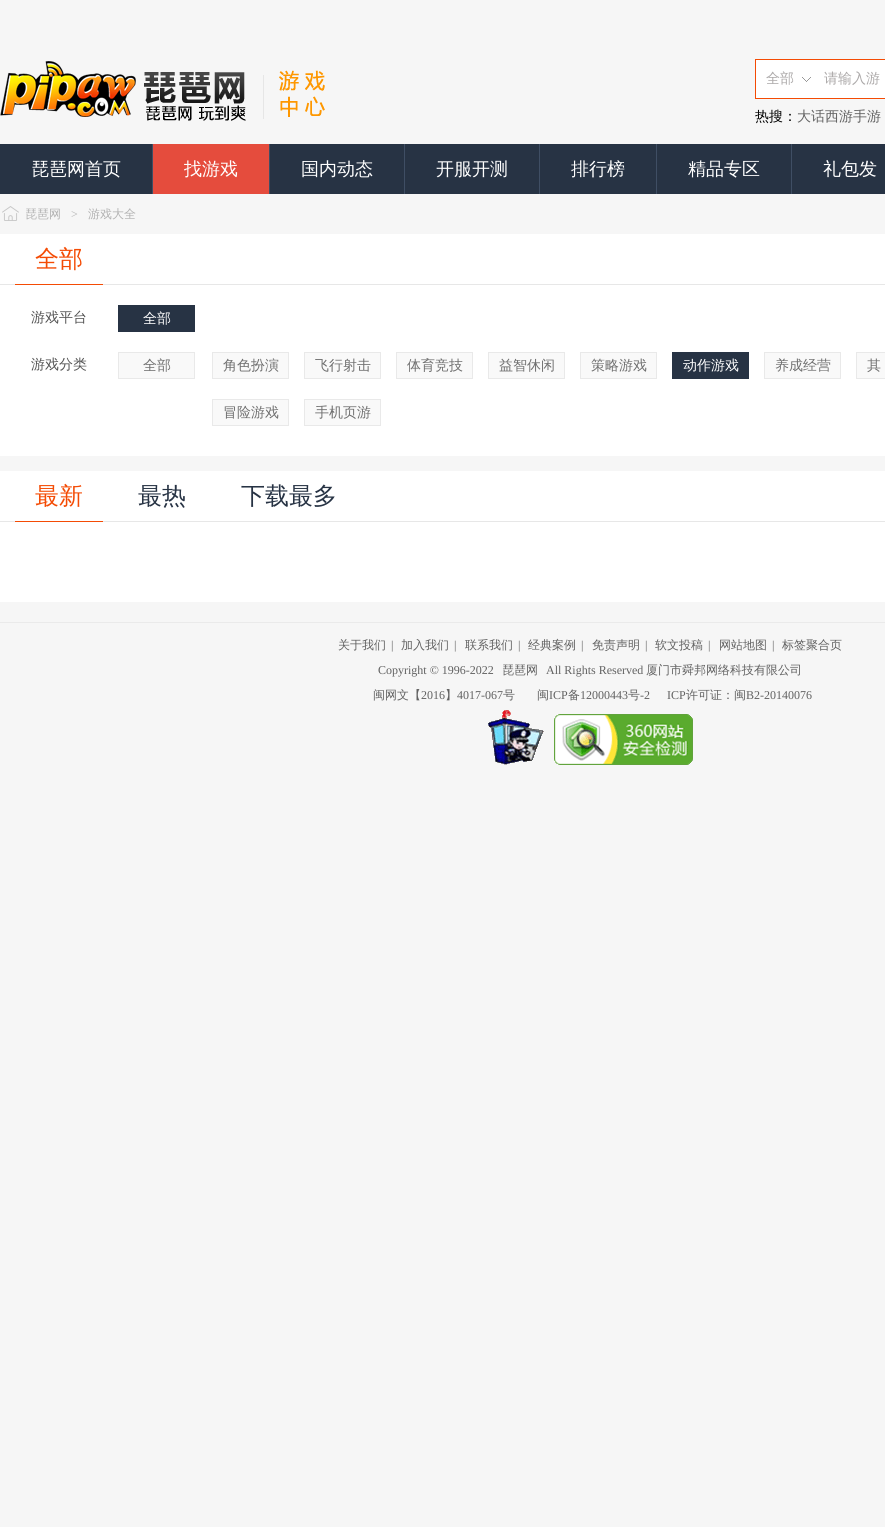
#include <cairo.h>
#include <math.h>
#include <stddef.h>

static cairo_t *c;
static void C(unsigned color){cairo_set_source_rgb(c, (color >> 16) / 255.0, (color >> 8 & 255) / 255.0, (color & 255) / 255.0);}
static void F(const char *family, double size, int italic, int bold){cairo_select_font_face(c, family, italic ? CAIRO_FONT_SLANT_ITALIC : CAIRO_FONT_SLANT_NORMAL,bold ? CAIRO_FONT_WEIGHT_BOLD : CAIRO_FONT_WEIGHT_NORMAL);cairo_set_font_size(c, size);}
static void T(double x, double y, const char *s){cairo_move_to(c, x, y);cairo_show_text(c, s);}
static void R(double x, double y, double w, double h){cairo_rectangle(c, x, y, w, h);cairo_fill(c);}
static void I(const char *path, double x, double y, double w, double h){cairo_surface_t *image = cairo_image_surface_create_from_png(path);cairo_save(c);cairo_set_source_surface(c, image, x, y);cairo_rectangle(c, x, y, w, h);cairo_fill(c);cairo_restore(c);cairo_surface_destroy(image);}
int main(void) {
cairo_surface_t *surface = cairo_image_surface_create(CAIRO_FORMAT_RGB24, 885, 1527);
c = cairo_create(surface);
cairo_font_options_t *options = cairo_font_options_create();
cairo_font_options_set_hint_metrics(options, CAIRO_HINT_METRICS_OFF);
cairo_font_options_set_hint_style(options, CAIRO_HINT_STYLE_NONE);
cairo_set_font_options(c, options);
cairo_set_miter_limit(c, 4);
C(0xf6f6f6);
cairo_paint(c);
I("1.png",0,61,264,60);
I("2.png",279,70,46,47);
C(0xffffff);
cairo_rectangle(c,755.5,59.5,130,39);
cairo_fill_preserve(c);
C(0xf44b04);
cairo_set_line_width(c,1);
cairo_stroke(c);
I("3.png",802,77,9,5);
F("WenQuanYi Zen Hei Medium",14,0,0);
C(0xaca9a9);
T(766,83,"全部");
T(824,83,"请输入游");
C(0x000000);
T(755,121,"热搜：");
C(0x616161);
T(797,121,"大话西游手游");
C(0x273344);
R(0,144,885,50);
C(0x3f4e64);
R(152,144,1,50);
F("WenQuanYi Zen Hei Medium",18,0,0);
C(0xffffff);
T(31,175,"琵琶网首页");
C(0xe54c3d);
R(153,144,116,50);
C(0x3f4e64);
R(269,144,1,50);
C(0xffffff);
T(184,175,"找游戏");
C(0x3f4e64);
R(404,144,1,50);
C(0xffffff);
T(301,175,"国内动态");
C(0x3f4e64);
R(539,144,1,50);
C(0xffffff);
T(436,175,"开服开测");
C(0x3f4e64);
R(656,144,1,50);
C(0xffffff);
T(571,175,"排行榜");
C(0x3f4e64);
R(791,144,1,50);
C(0xffffff);
T(688,175,"精品专区");
T(823,175,"礼包发");
I("4.png",2,206,17,15);
F("WenQuanYi Zen Hei Medium",12,0,0);
C(0xb2b2b2);
T(25,218,"琵琶网");
F("Liberation Serif",12,0,0);
T(71,218,">");
F("WenQuanYi Zen Hei Medium",12,0,0);
T(88,218,"游戏大全");
C(0xffffff);
R(0,234,885,368);
C(0xe7e7e7);
R(0,284,885,1);
C(0xf44b04);
R(15,284,88,1);
F("WenQuanYi Zen Hei Medium",24,0,0);
T(35,267,"全部");
F("WenQuanYi Zen Hei Medium",14,0,0);
C(0x545454);
T(31,322,"游戏平台");
C(0x273344);
R(118,305,77,27);
C(0xffffff);
T(143,323,"全部");
C(0x545454);
T(31,369,"游戏分类");
C(0xf9f9f9);
cairo_rectangle(c,118.5,352.5,76,26);
cairo_fill_preserve(c);
C(0xe9e9e9);
cairo_stroke(c);
C(0x6f6f6f);
T(143,370,"全部");
C(0xf9f9f9);
cairo_rectangle(c,212.5,352.5,76,26);
cairo_fill_preserve(c);
C(0xe9e9e9);
cairo_stroke(c);
C(0x6f6f6f);
T(223,370,"角色扮演");
C(0xf9f9f9);
cairo_rectangle(c,304.5,352.5,76,26);
cairo_fill_preserve(c);
C(0xe9e9e9);
cairo_stroke(c);
C(0x6f6f6f);
T(315,370,"飞行射击");
C(0xf9f9f9);
cairo_rectangle(c,396.5,352.5,76,26);
cairo_fill_preserve(c);
C(0xe9e9e9);
cairo_stroke(c);
C(0x6f6f6f);
T(407,370,"体育竞技");
C(0xf9f9f9);
cairo_rectangle(c,488.5,352.5,76,26);
cairo_fill_preserve(c);
C(0xe9e9e9);
cairo_stroke(c);
C(0x6f6f6f);
T(499,370,"益智休闲");
C(0xf9f9f9);
cairo_rectangle(c,580.5,352.5,76,26);
cairo_fill_preserve(c);
C(0xe9e9e9);
cairo_stroke(c);
C(0x6f6f6f);
T(591,370,"策略游戏");
C(0x273344);
R(672,352,77,27);
C(0xffffff);
T(683,370,"动作游戏");
C(0xf9f9f9);
cairo_rectangle(c,764.5,352.5,76,26);
cairo_fill_preserve(c);
C(0xe9e9e9);
cairo_stroke(c);
C(0x6f6f6f);
T(775,370,"养成经营");
C(0xf9f9f9);
cairo_rectangle(c,856.5,352.5,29,26);
cairo_fill_preserve(c);
C(0xe9e9e9);
cairo_stroke(c);
C(0x6f6f6f);
T(867,370,"其");
C(0xf9f9f9);
cairo_rectangle(c,212.5,399.5,76,26);
cairo_fill_preserve(c);
C(0xe9e9e9);
cairo_stroke(c);
C(0x6f6f6f);
T(223,417,"冒险游戏");
C(0xf9f9f9);
cairo_rectangle(c,304.5,399.5,76,26);
cairo_fill_preserve(c);
C(0xe9e9e9);
cairo_stroke(c);
C(0x6f6f6f);
T(315,417,"手机页游");
C(0xf6f6f6);
R(0,456,885,15);
C(0xe7e7e7);
R(0,521,885,1);
C(0xf44b04);
R(15,521,88,1);
F("WenQuanYi Zen Hei Medium",24,0,0);
T(35,504,"最新");
C(0x273344);
T(138,504,"最热");
T(241,504,"下载最多");
C(0xeaeaea);
R(0,622,885,1);
F("WenQuanYi Zen Hei Medium",12,0,0);
C(0x616161);
T(338,649,"关于我们");
F("Liberation Serif",12,0,0);
T(391,649,"|");
F("WenQuanYi Zen Hei Medium",12,0,0);
T(401,649,"加入我们");
F("Liberation Serif",12,0,0);
T(454,649,"|");
F("WenQuanYi Zen Hei Medium",12,0,0);
T(465,649,"联系我们");
F("Liberation Serif",12,0,0);
T(518,649,"|");
F("WenQuanYi Zen Hei Medium",12,0,0);
T(528,649,"经典案例");
F("Liberation Serif",12,0,0);
T(581,649,"|");
F("WenQuanYi Zen Hei Medium",12,0,0);
T(592,649,"免责声明");
F("Liberation Serif",12,0,0);
T(645,649,"|");
F("WenQuanYi Zen Hei Medium",12,0,0);
T(655,649,"软文投稿");
F("Liberation Serif",12,0,0);
T(708,649,"|");
F("WenQuanYi Zen Hei Medium",12,0,0);
T(719,649,"网站地图");
F("Liberation Serif",12,0,0);
T(772,649,"|");
F("WenQuanYi Zen Hei Medium",12,0,0);
T(782,649,"标签聚合页");
F("Liberation Serif",12,0,0);
T(378,674,"Copyright © 1996-2022");
F("WenQuanYi Zen Hei Medium",12,0,0);
T(502,674,"琵琶网");
F("Liberation Serif",12,0,0);
T(546,674,"All Rights Reserved");
F("WenQuanYi Zen Hei Medium",12,0,0);
T(646,674,"厦门市舜邦网络科技有限公司");
T(373,699,"闽网文【");
F("Liberation Serif",12,0,0);
T(421,699,"2016");
F("WenQuanYi Zen Hei Medium",12,0,0);
T(445,699,"】");
F("Liberation Serif",12,0,0);
T(457,699,"4017-067");
F("WenQuanYi Zen Hei Medium",12,0,0);
T(503,699,"号");
T(537,699,"闽");
F("Liberation Serif",12,0,0);
T(549,699,"ICP");
F("WenQuanYi Zen Hei Medium",12,0,0);
T(568,699,"备");
F("Liberation Serif",12,0,0);
T(580,699,"12000443");
F("WenQuanYi Zen Hei Medium",12,0,0);
T(628,699,"号");
F("Liberation Serif",12,0,0);
T(640,699,"-2");
T(667,699,"ICP");
F("WenQuanYi Zen Hei Medium",12,0,0);
T(686,699,"许可证：闽");
F("Liberation Serif",12,0,0);
T(746,699,"B2-20140076");
I("5.png",488,710,56,55);
I("6.png",554,714,139,51);
cairo_surface_write_to_png(surface, "o.png");
cairo_font_options_destroy(options);
cairo_destroy(c);
cairo_surface_destroy(surface);
return 0;
}
